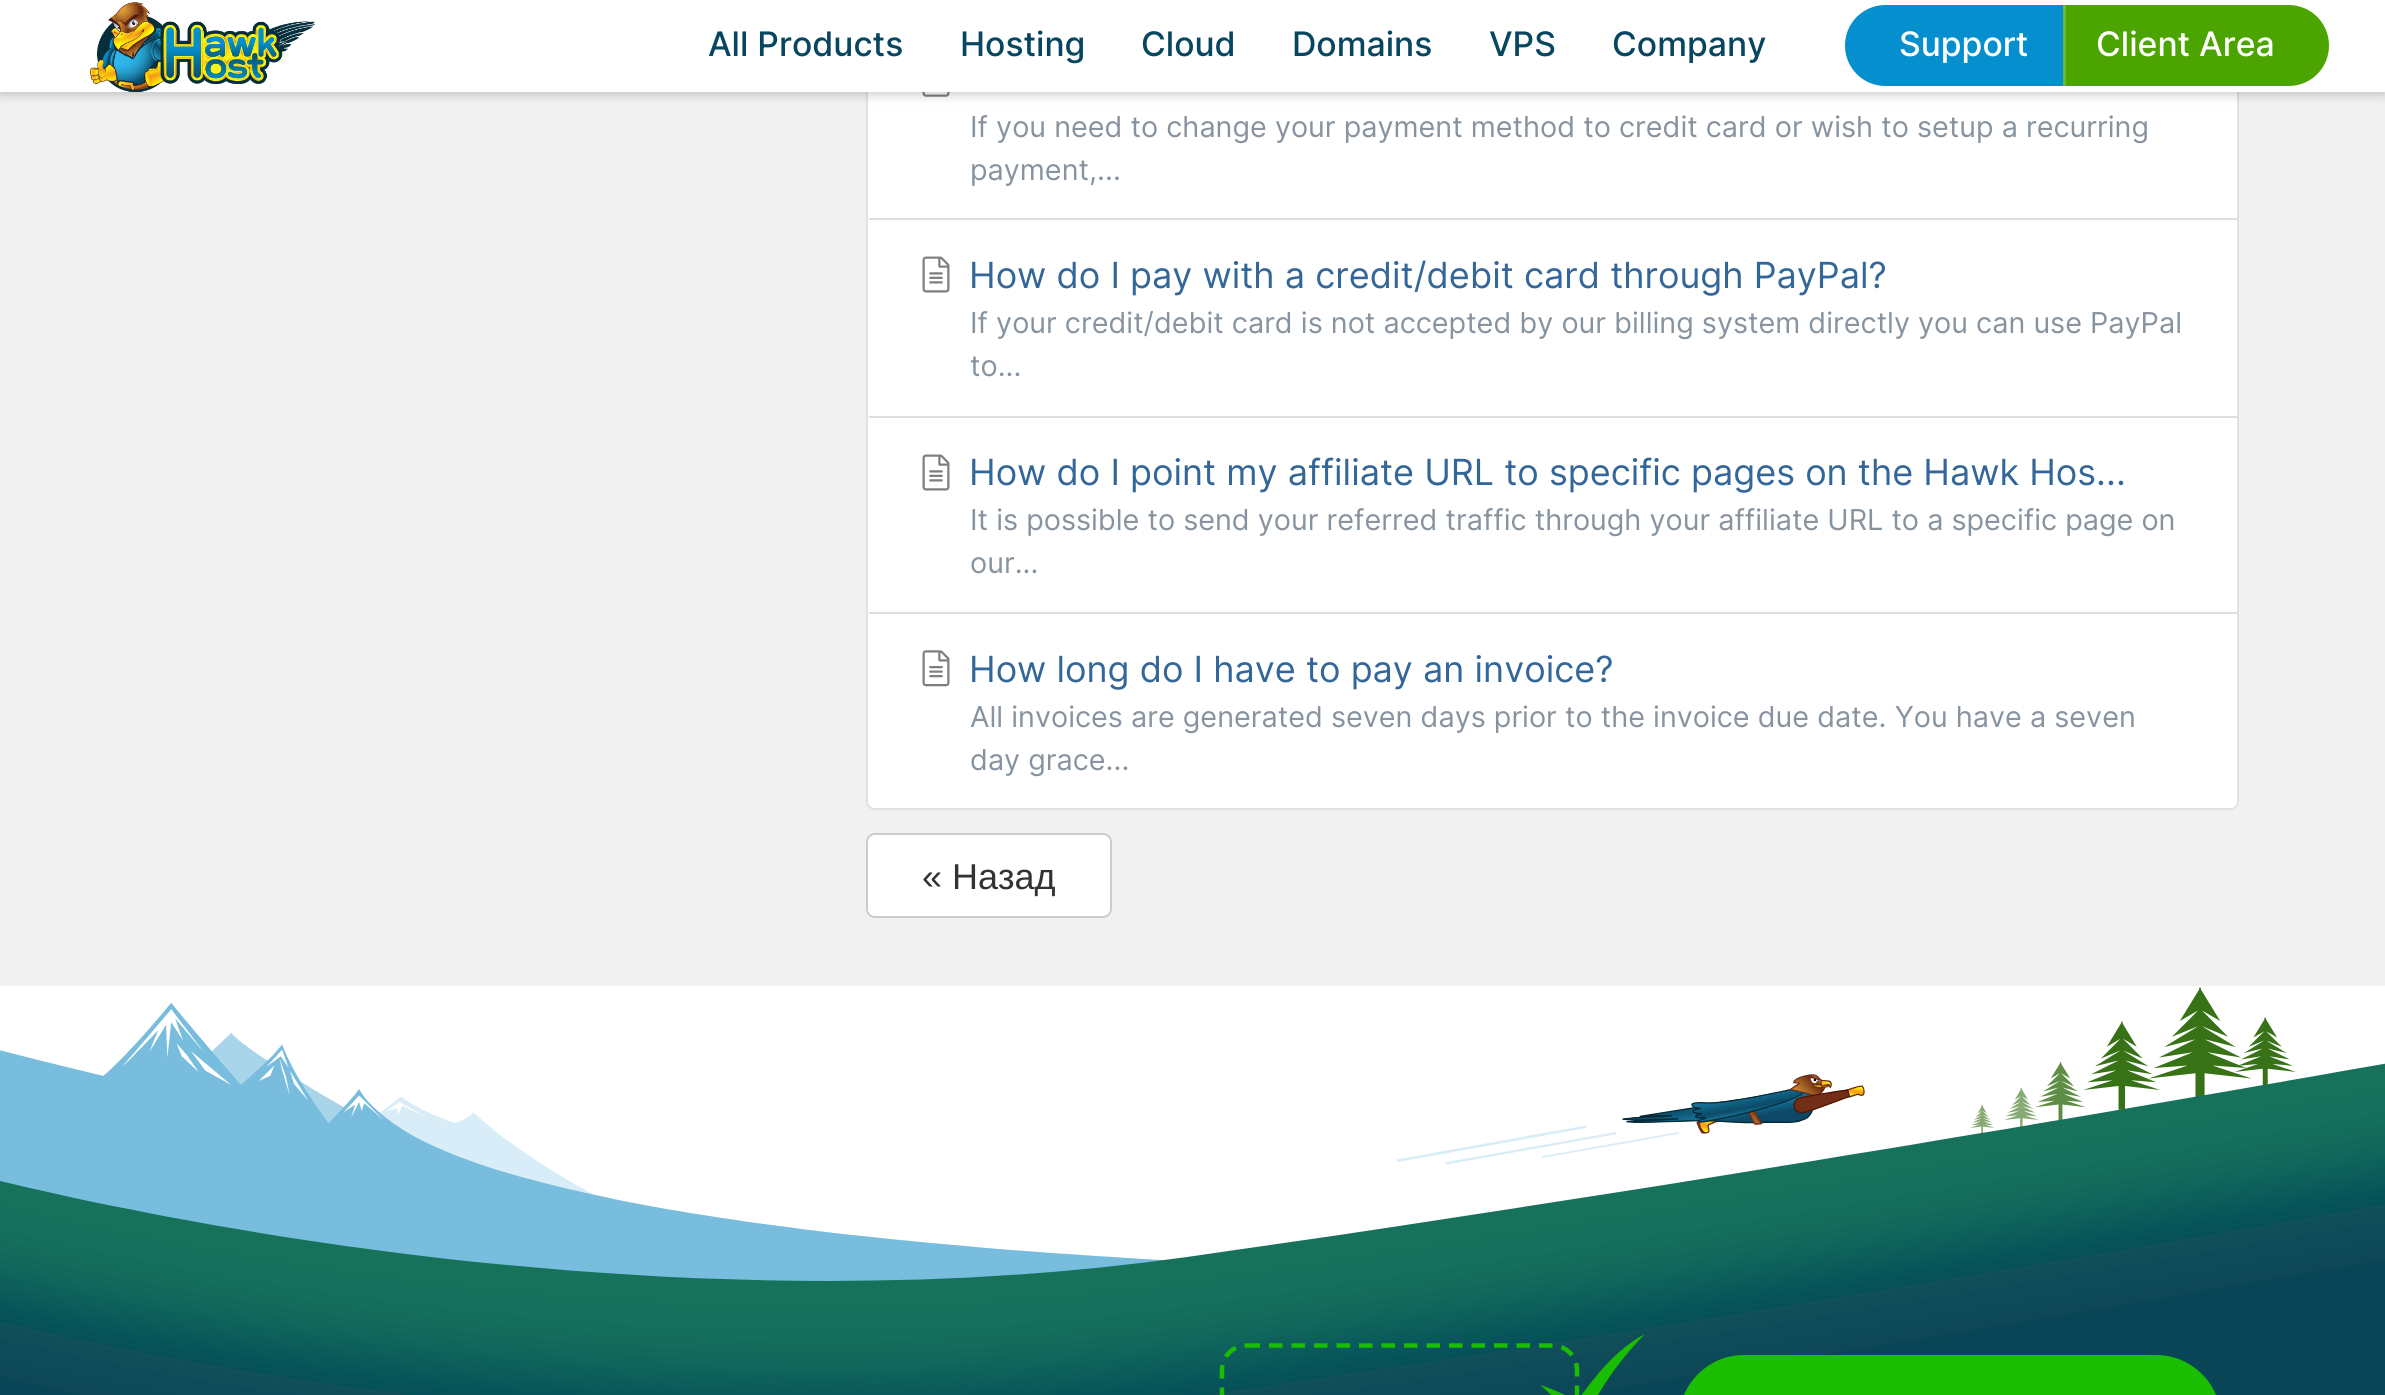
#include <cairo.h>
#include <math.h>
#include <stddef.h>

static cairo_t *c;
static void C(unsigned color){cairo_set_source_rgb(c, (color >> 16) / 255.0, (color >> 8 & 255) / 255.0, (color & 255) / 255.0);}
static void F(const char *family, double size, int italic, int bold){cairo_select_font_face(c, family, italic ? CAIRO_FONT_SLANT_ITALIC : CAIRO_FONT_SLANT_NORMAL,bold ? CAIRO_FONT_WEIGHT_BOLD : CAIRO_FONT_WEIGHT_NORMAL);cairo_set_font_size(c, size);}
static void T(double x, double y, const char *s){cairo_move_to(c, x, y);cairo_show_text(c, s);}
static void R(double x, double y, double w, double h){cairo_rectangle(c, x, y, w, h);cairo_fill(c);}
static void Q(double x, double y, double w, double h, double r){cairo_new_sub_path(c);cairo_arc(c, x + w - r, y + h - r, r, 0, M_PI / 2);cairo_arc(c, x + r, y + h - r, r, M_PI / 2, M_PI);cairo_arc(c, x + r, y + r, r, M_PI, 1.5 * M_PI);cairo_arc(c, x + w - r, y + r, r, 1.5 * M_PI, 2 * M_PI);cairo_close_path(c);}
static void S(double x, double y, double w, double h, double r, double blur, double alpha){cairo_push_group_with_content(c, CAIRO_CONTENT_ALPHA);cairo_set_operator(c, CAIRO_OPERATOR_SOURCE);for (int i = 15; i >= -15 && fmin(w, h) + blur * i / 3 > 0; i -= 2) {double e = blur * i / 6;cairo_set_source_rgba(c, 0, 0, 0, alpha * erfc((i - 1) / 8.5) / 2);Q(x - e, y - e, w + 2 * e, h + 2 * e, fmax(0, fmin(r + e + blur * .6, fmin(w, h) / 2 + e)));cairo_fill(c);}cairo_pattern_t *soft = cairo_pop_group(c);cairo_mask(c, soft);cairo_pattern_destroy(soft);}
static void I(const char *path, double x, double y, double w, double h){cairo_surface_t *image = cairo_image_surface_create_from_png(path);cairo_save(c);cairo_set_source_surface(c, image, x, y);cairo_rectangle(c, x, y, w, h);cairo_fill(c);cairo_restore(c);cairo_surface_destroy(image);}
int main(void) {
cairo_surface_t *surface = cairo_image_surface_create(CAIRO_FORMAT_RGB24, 2385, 1395);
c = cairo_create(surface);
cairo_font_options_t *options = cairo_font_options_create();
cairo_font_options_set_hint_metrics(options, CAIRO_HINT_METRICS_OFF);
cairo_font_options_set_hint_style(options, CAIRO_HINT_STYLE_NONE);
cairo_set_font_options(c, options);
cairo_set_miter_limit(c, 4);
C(0xf1f1f1);
cairo_paint(c);
C(0xffffff);
Q(866,-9,1373,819,9);
cairo_fill(c);
Q(867,-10,1371,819,8);
cairo_set_source_rgba(c,0,0,0,0.12);
cairo_stroke(c);
I("2.png",922,92,28,5);
C(0x000000);
S(0,2,2385,93,0,5.5,.2);
C(0xffffff);
R(0,0,2385,92);
I("1.png",90,2,225,91);
F("Inter Medium",33.75,0,0);
C(0x064660);
T(708,56,"All Products");
T(960,56,"Hosting");
T(1141,56,"Cloud");
T(1292,56,"Domains");
T(1489,56,"VPS");
T(1612,56,"Company");
C(0x068fce);
cairo_new_path(c);
cairo_move_to(c,1885.5,5);
cairo_line_to(c,2063,5);
cairo_line_to(c,2063,86);
cairo_line_to(c,1885.5,86);
cairo_curve_to(c,1863,86,1845,68,1845,45.5);
cairo_curve_to(c,1845,23,1863,5,1885.5,5);
cairo_close_path(c);
cairo_fill(c);
C(0xffffff);
T(1899,56,"Support");
C(0x4ba400);
cairo_new_path(c);
cairo_move_to(c,2063,5);
cairo_line_to(c,2288.5,5);
cairo_curve_to(c,2311,5,2329,23,2329,45.5);
cairo_curve_to(c,2329,68,2311,86,2288.5,86);
cairo_line_to(c,2063,86);
cairo_close_path(c);
cairo_fill(c);
C(0x6fb633);
R(2063,5,3,81);
C(0xffffff);
T(2096,56,"Client Area");
C(0xdfdfdf);
R(869,218,1368,2);
F("Inter",28.8,0,0);
C(0x87939f);
T(970,137,"If you need to change your payment method to credit card or wish to setup a recurring");
T(970,180,"payment,...");
C(0xdfdfdf);
R(869,416,1368,2);
I("3.png",922,256,28,37);
F("Inter",36,0,0);
C(0x336699);
T(969,288,"How do I pay with a credit/debit card through PayPal?");
F("Inter",28.8,0,0);
C(0x87939f);
T(970,333,"If your credit/debit card is not accepted by our billing system directly you can use PayPal");
T(970,376,"to...");
C(0xdfdfdf);
R(869,612,1368,2);
I("3.png",922,454,28,37);
F("Inter",36,0,0);
C(0x336699);
T(969,485,"How do I point my affiliate URL to specific pages on the Hawk Hos...");
F("Inter",28.8,0,0);
C(0x87939f);
T(970,530,"It is possible to send your referred traffic through your affiliate URL to a specific page on");
T(970,573,"our...");
C(0xffffff);
cairo_new_path(c);
cairo_move_to(c,869,614);
cairo_line_to(c,2237,614);
cairo_line_to(c,2237,801);
cairo_curve_to(c,2237,805,2234,808,2230,808);
cairo_line_to(c,876,808);
cairo_curve_to(c,872,808,869,805,869,801);
cairo_close_path(c);
cairo_fill(c);
I("4.png",922,650,28,37);
F("Inter",36,0,0);
C(0x336699);
T(969,682,"How long do I have to pay an invoice?");
F("Inter",28.8,0,0);
C(0x87939f);
T(970,727,"All invoices are generated seven days prior to the invoice due date. You have a seven");
T(970,770,"day grace...");
C(0xffffff);
Q(867,834,244,83,8);
cairo_fill_preserve(c);
C(0xcccccc);
cairo_stroke(c);
F("Liberation Sans",36,0,0);
C(0x333333);
T(922,889,"« Назад");
I("5.png",0,986,2385,409);
cairo_new_path(c);
cairo_move_to(c,1246.5,1345.5);
cairo_line_to(c,1552.5,1345.5);
cairo_curve_to(c,1566,1345.5,1577,1356.5,1577,1370);
cairo_line_to(c,1577,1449);
cairo_curve_to(c,1577,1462.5,1566,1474,1552.5,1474);
cairo_line_to(c,1246.5,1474);
cairo_curve_to(c,1233,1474,1222,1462.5,1222,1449);
cairo_line_to(c,1222,1370);
cairo_curve_to(c,1222,1356.5,1233,1345.5,1246.5,1345.5);
cairo_close_path(c);
C(0x1bbd00);
cairo_set_line_width(c,4.5);
cairo_set_dash(c,(double[]){13.5,9},2,0);
cairo_stroke(c);
cairo_set_fill_rule(c,CAIRO_FILL_RULE_EVEN_ODD);
cairo_new_path(c);
cairo_move_to(c,1540,1385);
cairo_curve_to(c,1562,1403,1571,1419,1578,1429);
cairo_curve_to(c,1593,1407,1603,1377,1645,1334);
cairo_curve_to(c,1608,1353,1582,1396,1576,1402);
cairo_curve_to(c,1569,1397,1559,1391,1540,1385);
cairo_close_path(c);
cairo_fill(c);
Q(1679,1355,542,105,65);
cairo_fill(c);
cairo_surface_write_to_png(surface, "o.png");
cairo_font_options_destroy(options);
cairo_destroy(c);
cairo_surface_destroy(surface);
return 0;
}
